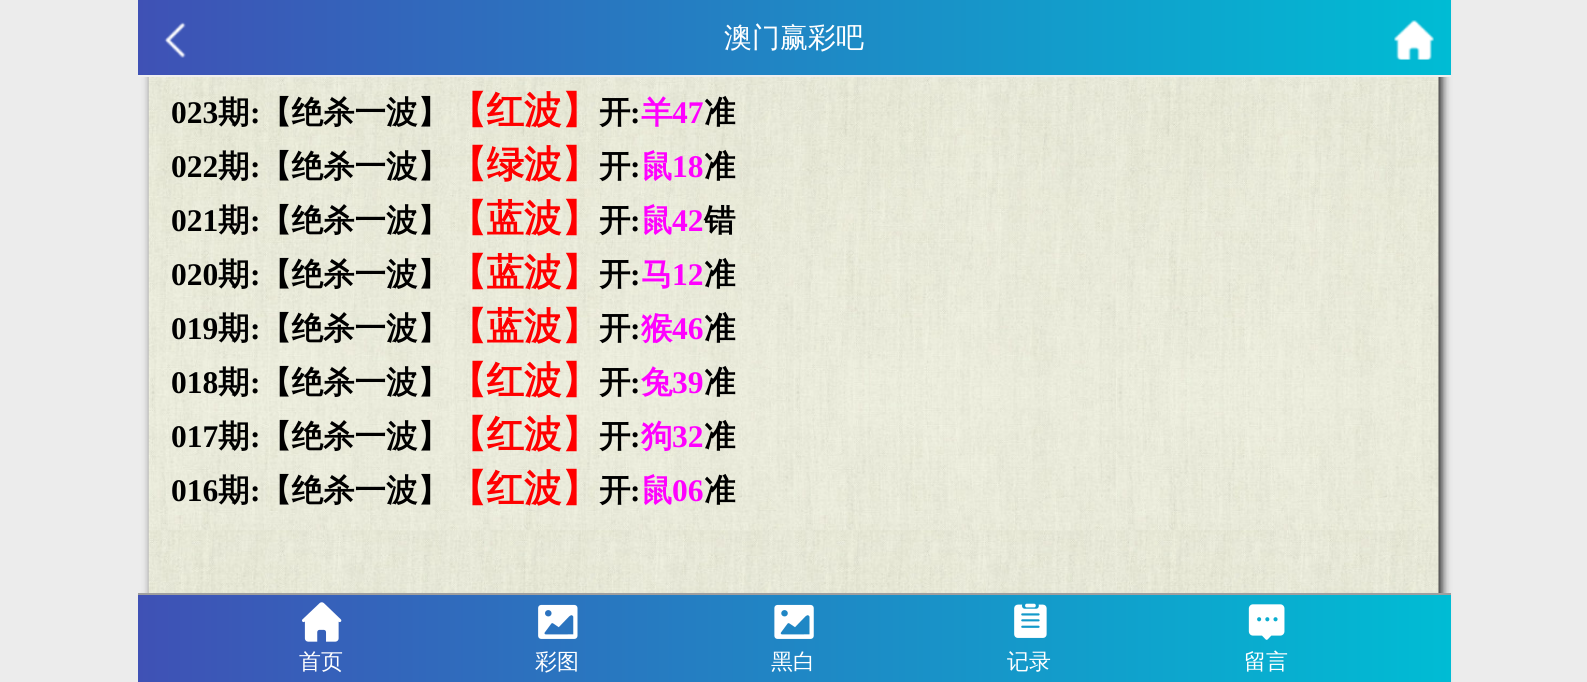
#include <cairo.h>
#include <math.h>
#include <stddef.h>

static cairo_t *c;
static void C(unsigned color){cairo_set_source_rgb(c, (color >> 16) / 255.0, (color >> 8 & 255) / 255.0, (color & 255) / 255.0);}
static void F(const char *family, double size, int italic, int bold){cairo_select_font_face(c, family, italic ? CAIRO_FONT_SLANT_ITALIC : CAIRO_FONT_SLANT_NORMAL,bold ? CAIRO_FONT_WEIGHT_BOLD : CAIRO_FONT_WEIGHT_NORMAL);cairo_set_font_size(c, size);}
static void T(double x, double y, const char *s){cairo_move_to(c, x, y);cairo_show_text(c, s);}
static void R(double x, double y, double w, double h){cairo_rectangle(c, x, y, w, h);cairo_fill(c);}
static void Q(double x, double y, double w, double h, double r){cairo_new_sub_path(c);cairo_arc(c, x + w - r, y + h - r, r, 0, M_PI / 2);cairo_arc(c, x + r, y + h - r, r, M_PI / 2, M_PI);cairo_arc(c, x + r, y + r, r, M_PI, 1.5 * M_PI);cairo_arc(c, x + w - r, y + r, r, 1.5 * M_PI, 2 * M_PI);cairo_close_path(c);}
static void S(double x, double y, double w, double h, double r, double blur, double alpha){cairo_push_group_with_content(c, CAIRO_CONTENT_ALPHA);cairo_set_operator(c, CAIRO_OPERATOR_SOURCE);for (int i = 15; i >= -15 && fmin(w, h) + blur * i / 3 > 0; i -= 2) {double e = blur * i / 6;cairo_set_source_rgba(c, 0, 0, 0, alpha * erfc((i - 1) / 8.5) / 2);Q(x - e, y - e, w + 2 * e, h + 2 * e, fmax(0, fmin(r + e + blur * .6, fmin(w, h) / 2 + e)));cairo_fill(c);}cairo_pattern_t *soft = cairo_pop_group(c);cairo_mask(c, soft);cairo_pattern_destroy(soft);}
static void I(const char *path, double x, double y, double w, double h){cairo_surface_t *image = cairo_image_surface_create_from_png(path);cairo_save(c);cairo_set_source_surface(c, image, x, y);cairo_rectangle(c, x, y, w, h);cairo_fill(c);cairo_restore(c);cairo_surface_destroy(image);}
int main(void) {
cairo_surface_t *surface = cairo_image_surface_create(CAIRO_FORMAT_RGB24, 1587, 682);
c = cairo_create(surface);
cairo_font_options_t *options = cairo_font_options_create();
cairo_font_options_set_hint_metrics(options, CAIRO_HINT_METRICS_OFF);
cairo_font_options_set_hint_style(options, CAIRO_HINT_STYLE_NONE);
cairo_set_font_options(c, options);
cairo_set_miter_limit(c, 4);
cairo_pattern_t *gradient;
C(0xececec);
cairo_paint(c);
C(0x222222);
S(152,-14,1290,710,0,4.5,1);
gradient = cairo_pattern_create_linear(138,38,1451,38);
cairo_pattern_add_color_stop_rgba(gradient,0,0.247,0.318,0.71,1);
cairo_pattern_add_color_stop_rgba(gradient,1,0,0.737,0.831,1);
cairo_set_source(c,gradient);
cairo_pattern_destroy(gradient);
R(138,0,1313,75);
C(0xefefef);
R(138,75,1313,2);
I("1.png",164,22,22,36);
F("WenQuanYi Zen Hei Medium",28,0,0);
C(0xffffff);
T(724,47,"澳门赢彩吧");
I("2.png",1394,20,40,40);
I("3.png",148,77,1291,516);
F("Liberation Serif",31.5,0,1);
C(0x000000);
T(171,123,"023");
F("WenQuanYi Zen Hei",31.5,0,1);
T(218,123,"期");
F("Liberation Serif",31.5,0,1);
T(250,123,":");
F("WenQuanYi Zen Hei",31.5,0,1);
T(260,123,"【绝杀一波】");
F("WenQuanYi Zen Hei",37.5,0,1);
C(0xff0000);
T(449,123,"【红波】");
F("WenQuanYi Zen Hei",31.5,0,1);
C(0x000000);
T(599,123,"开");
F("Liberation Serif",31.5,0,1);
T(630,123,":");
F("WenQuanYi Zen Hei",31.5,0,1);
C(0xff00ff);
T(641,123,"羊");
F("Liberation Serif",31.5,0,1);
T(672,123,"47");
F("WenQuanYi Zen Hei",31.5,0,1);
C(0x000000);
T(704,123,"准");
F("Liberation Serif",31.5,0,1);
T(171,177,"022");
F("WenQuanYi Zen Hei",31.5,0,1);
T(218,177,"期");
F("Liberation Serif",31.5,0,1);
T(250,177,":");
F("WenQuanYi Zen Hei",31.5,0,1);
T(260,177,"【绝杀一波】");
F("WenQuanYi Zen Hei",37.5,0,1);
C(0xff0000);
T(449,177,"【绿波】");
F("WenQuanYi Zen Hei",31.5,0,1);
C(0x000000);
T(599,177,"开");
F("Liberation Serif",31.5,0,1);
T(630,177,":");
F("WenQuanYi Zen Hei",31.5,0,1);
C(0xff00ff);
T(641,177,"鼠");
F("Liberation Serif",31.5,0,1);
T(672,177,"18");
F("WenQuanYi Zen Hei",31.5,0,1);
C(0x000000);
T(704,177,"准");
F("Liberation Serif",31.5,0,1);
T(171,231,"021");
F("WenQuanYi Zen Hei",31.5,0,1);
T(218,231,"期");
F("Liberation Serif",31.5,0,1);
T(250,231,":");
F("WenQuanYi Zen Hei",31.5,0,1);
T(260,231,"【绝杀一波】");
F("WenQuanYi Zen Hei",37.5,0,1);
C(0xff0000);
T(449,231,"【蓝波】");
F("WenQuanYi Zen Hei",31.5,0,1);
C(0x000000);
T(599,231,"开");
F("Liberation Serif",31.5,0,1);
T(630,231,":");
F("WenQuanYi Zen Hei",31.5,0,1);
C(0xff00ff);
T(641,231,"鼠");
F("Liberation Serif",31.5,0,1);
T(672,231,"42");
F("WenQuanYi Zen Hei",31.5,0,1);
C(0x000000);
T(704,231,"错");
F("Liberation Serif",31.5,0,1);
T(171,285,"020");
F("WenQuanYi Zen Hei",31.5,0,1);
T(218,285,"期");
F("Liberation Serif",31.5,0,1);
T(250,285,":");
F("WenQuanYi Zen Hei",31.5,0,1);
T(260,285,"【绝杀一波】");
F("WenQuanYi Zen Hei",37.5,0,1);
C(0xff0000);
T(449,285,"【蓝波】");
F("WenQuanYi Zen Hei",31.5,0,1);
C(0x000000);
T(599,285,"开");
F("Liberation Serif",31.5,0,1);
T(630,285,":");
F("WenQuanYi Zen Hei",31.5,0,1);
C(0xff00ff);
T(641,285,"马");
F("Liberation Serif",31.5,0,1);
T(672,285,"12");
F("WenQuanYi Zen Hei",31.5,0,1);
C(0x000000);
T(704,285,"准");
F("Liberation Serif",31.5,0,1);
T(171,339,"019");
F("WenQuanYi Zen Hei",31.5,0,1);
T(218,339,"期");
F("Liberation Serif",31.5,0,1);
T(250,339,":");
F("WenQuanYi Zen Hei",31.5,0,1);
T(260,339,"【绝杀一波】");
F("WenQuanYi Zen Hei",37.5,0,1);
C(0xff0000);
T(449,339,"【蓝波】");
F("WenQuanYi Zen Hei",31.5,0,1);
C(0x000000);
T(599,339,"开");
F("Liberation Serif",31.5,0,1);
T(630,339,":");
F("WenQuanYi Zen Hei",31.5,0,1);
C(0xff00ff);
T(641,339,"猴");
F("Liberation Serif",31.5,0,1);
T(672,339,"46");
F("WenQuanYi Zen Hei",31.5,0,1);
C(0x000000);
T(704,339,"准");
F("Liberation Serif",31.5,0,1);
T(171,393,"018");
F("WenQuanYi Zen Hei",31.5,0,1);
T(218,393,"期");
F("Liberation Serif",31.5,0,1);
T(250,393,":");
F("WenQuanYi Zen Hei",31.5,0,1);
T(260,393,"【绝杀一波】");
F("WenQuanYi Zen Hei",37.5,0,1);
C(0xff0000);
T(449,393,"【红波】");
F("WenQuanYi Zen Hei",31.5,0,1);
C(0x000000);
T(599,393,"开");
F("Liberation Serif",31.5,0,1);
T(630,393,":");
F("WenQuanYi Zen Hei",31.5,0,1);
C(0xff00ff);
T(641,393,"兔");
F("Liberation Serif",31.5,0,1);
T(672,393,"39");
F("WenQuanYi Zen Hei",31.5,0,1);
C(0x000000);
T(704,393,"准");
F("Liberation Serif",31.5,0,1);
T(171,447,"017");
F("WenQuanYi Zen Hei",31.5,0,1);
T(218,447,"期");
F("Liberation Serif",31.5,0,1);
T(250,447,":");
F("WenQuanYi Zen Hei",31.5,0,1);
T(260,447,"【绝杀一波】");
F("WenQuanYi Zen Hei",37.5,0,1);
C(0xff0000);
T(449,447,"【红波】");
F("WenQuanYi Zen Hei",31.5,0,1);
C(0x000000);
T(599,447,"开");
F("Liberation Serif",31.5,0,1);
T(630,447,":");
F("WenQuanYi Zen Hei",31.5,0,1);
C(0xff00ff);
T(641,447,"狗");
F("Liberation Serif",31.5,0,1);
T(672,447,"32");
F("WenQuanYi Zen Hei",31.5,0,1);
C(0x000000);
T(704,447,"准");
F("Liberation Serif",31.5,0,1);
T(171,501,"016");
F("WenQuanYi Zen Hei",31.5,0,1);
T(218,501,"期");
F("Liberation Serif",31.5,0,1);
T(250,501,":");
F("WenQuanYi Zen Hei",31.5,0,1);
T(260,501,"【绝杀一波】");
F("WenQuanYi Zen Hei",37.5,0,1);
C(0xff0000);
T(449,501,"【红波】");
F("WenQuanYi Zen Hei",31.5,0,1);
C(0x000000);
T(599,501,"开");
F("Liberation Serif",31.5,0,1);
T(630,501,":");
F("WenQuanYi Zen Hei",31.5,0,1);
C(0xff00ff);
T(641,501,"鼠");
F("Liberation Serif",31.5,0,1);
T(672,501,"06");
F("WenQuanYi Zen Hei",31.5,0,1);
C(0x000000);
T(704,501,"准");
gradient = cairo_pattern_create_linear(138,639,1451,639);
cairo_pattern_add_color_stop_rgba(gradient,0,0.247,0.318,0.71,1);
cairo_pattern_add_color_stop_rgba(gradient,1,0,0.737,0.831,1);
cairo_set_source(c,gradient);
cairo_pattern_destroy(gradient);
R(138,595,1313,87);
C(0x9f9f9f);
R(138,593,1313,2);
I("4.png",302,602,40,40);
F("WenQuanYi Zen Hei Medium",22,0,0);
C(0xffffff);
T(299,669,"首页");
I("5.png",538,604,40,35);
T(535,669,"彩图");
I("6.png",774,604,40,35);
T(771,669,"黑白");
I("7.png",1014,603,33,35);
T(1007,669,"记录");
I("8.png",1248,604,37,36);
T(1244,669,"留言");
cairo_surface_write_to_png(surface, "o.png");
cairo_font_options_destroy(options);
cairo_destroy(c);
cairo_surface_destroy(surface);
return 0;
}
